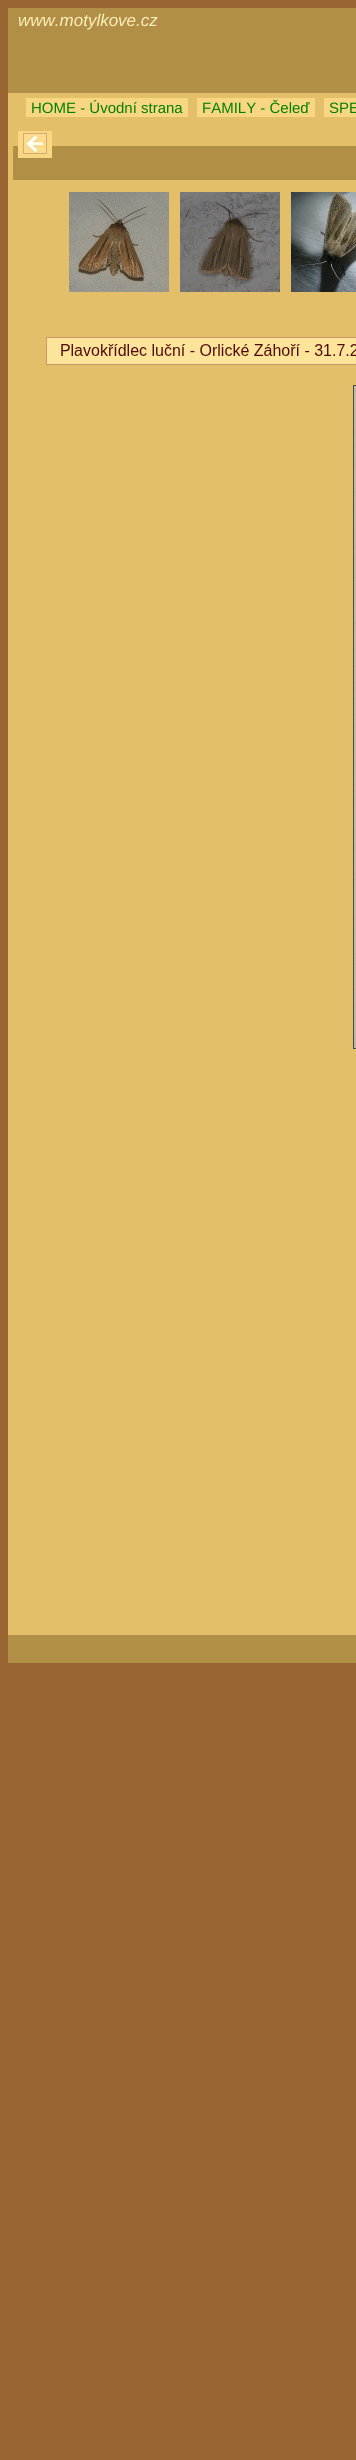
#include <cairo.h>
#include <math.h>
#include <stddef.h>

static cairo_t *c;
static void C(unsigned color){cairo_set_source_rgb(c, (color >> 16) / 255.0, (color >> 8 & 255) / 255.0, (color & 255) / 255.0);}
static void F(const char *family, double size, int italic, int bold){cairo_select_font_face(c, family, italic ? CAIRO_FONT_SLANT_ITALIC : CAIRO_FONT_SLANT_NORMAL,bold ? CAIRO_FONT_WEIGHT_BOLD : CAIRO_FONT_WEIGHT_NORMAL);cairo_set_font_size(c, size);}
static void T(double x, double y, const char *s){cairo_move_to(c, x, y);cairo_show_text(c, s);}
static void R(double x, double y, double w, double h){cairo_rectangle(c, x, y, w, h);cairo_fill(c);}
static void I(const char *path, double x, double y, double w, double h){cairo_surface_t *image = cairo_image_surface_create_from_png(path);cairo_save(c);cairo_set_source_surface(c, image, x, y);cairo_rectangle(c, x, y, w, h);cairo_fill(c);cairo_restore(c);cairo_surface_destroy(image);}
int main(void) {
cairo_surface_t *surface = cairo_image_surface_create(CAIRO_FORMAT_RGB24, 356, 2460);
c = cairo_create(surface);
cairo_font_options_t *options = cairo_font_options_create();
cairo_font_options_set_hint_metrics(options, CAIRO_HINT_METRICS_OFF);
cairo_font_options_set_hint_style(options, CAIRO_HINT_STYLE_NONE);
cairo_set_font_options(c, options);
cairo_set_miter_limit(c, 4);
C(0x996633);
cairo_paint(c);
C(0xe3bf6a);
R(8,93,348,1542);
C(0xb28f47);
R(8,8,348,85);
F("Liberation Sans",17,1,0);
C(0xfff0b9);
T(18,26,"www.motylkove.cz");
C(0xf9d782);
R(26,98,162,19);
F("Liberation Sans",15,0,0);
C(0x008000);
T(31,113,"HOME - Úvodní strana");
C(0xf9d782);
R(197,98,118,19);
C(0x008000);
T(202,113,"FAMILY - Čeleď");
C(0xf9d782);
R(324,98,32,19);
C(0x008000);
T(329,113,"SPE");
C(0xb28f47);
R(13,146,343,34);
C(0xf9d782);
R(18,131,34,27);
I("1.png",23,133,24,21);
I("2.png",69,192,100,100);
I("3.png",180,192,100,100);
I("4.png",291,192,65,100);
I("5.png",46,337,310,712);
C(0xb28f47);
R(8,1635,348,28);
cairo_surface_write_to_png(surface, "o.png");
cairo_font_options_destroy(options);
cairo_destroy(c);
cairo_surface_destroy(surface);
return 0;
}
